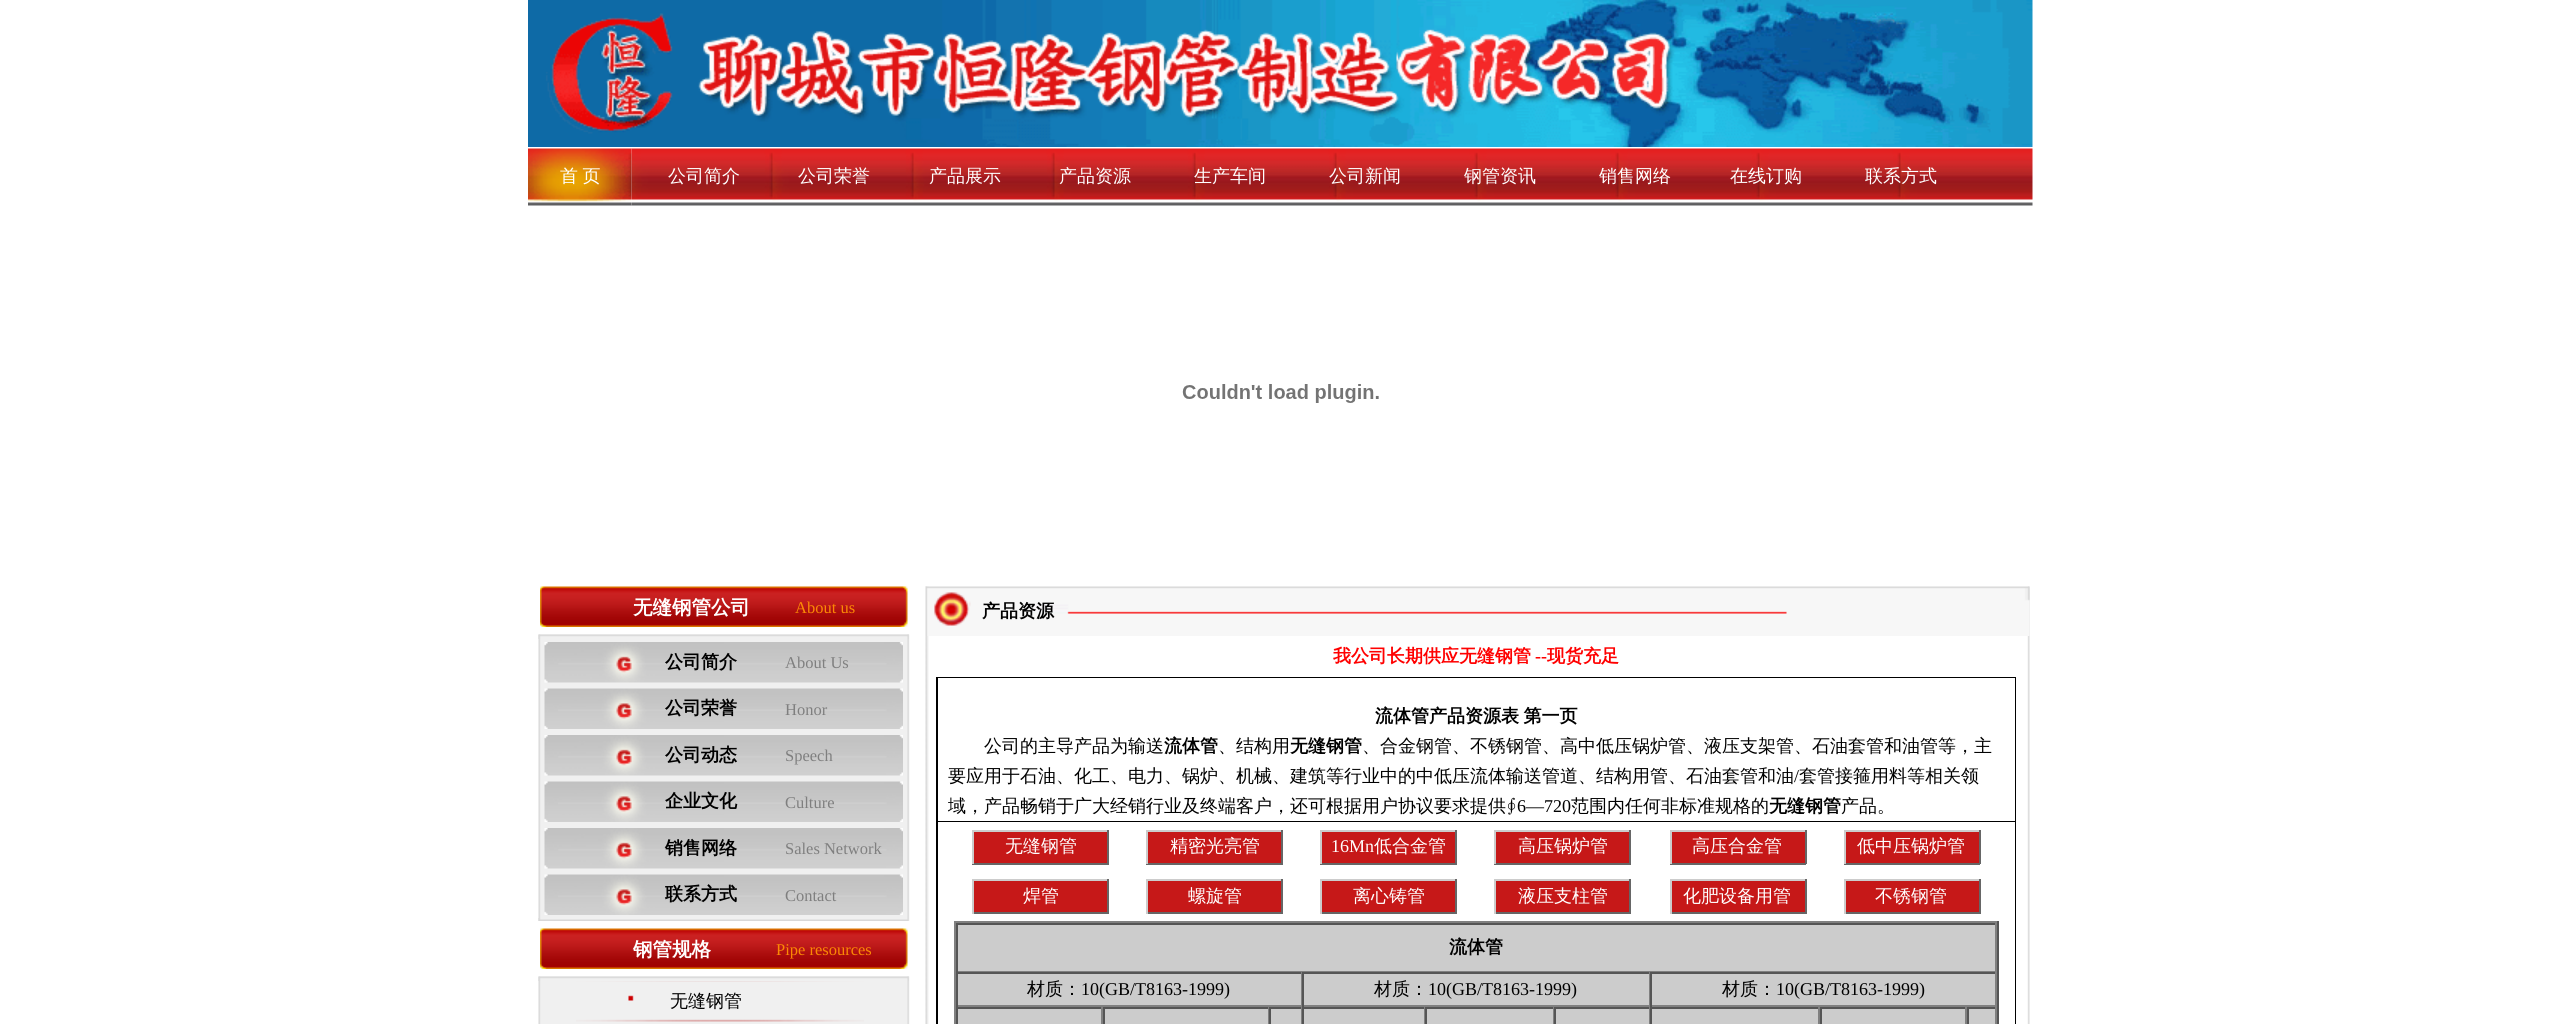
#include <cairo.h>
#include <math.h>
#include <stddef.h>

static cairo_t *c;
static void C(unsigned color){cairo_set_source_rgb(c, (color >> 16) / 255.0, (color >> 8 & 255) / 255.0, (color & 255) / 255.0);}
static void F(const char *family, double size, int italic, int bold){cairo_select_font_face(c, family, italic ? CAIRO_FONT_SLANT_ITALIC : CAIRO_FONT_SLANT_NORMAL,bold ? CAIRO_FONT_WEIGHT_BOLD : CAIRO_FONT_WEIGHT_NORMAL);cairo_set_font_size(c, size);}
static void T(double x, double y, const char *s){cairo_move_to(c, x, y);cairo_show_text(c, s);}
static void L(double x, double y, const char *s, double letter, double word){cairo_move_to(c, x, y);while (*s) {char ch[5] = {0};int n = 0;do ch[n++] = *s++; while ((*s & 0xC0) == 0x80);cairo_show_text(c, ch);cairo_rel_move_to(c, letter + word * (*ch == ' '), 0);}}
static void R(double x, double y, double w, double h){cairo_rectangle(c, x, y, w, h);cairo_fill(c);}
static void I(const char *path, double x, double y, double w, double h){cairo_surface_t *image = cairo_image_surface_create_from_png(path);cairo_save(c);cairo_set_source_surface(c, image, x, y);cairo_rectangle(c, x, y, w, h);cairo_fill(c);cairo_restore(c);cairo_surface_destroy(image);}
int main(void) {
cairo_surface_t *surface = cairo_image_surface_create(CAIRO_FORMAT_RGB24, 2561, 1024);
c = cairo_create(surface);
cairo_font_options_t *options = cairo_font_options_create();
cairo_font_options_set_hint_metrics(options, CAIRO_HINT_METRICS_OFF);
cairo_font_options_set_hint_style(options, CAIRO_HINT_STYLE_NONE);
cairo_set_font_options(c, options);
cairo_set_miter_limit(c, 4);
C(0xffffff);
cairo_paint(c);
I("1.png",528,0,1505,147);
I("2.png",528,148,104,58);
F("WenQuanYi Zen Hei Medium",18,0,0);
C(0xffffff);
L(560,182,"首 页",0,-1);
I("3.png",631,148,1402,58);
T(668,182,"公司简介");
T(798,182,"公司荣誉");
T(929,182,"产品展示");
T(1059,182,"产品资源");
T(1194,182,"生产车间");
T(1329,182,"公司新闻");
T(1464,182,"钢管资讯");
T(1599,182,"销售网络");
T(1730,182,"在线订购");
T(1865,182,"联系方式");
I("4.png",1182,384,197,19);
I("5.png",540,586,368,41);
F("WenQuanYi Zen Hei",19.5,0,1);
T(633,614,"无缝钢管公司");
F("Liberation Serif",16.5,0,0);
C(0xfb8904);
T(795,613,"About us");
I("6.png",538,634,372,287);
I("7.png",538,634,371,5);
I("8.png",544,642,359,41);
F("WenQuanYi Zen Hei",18,0,1);
C(0x000000);
T(665,668,"公司简介");
F("Liberation Serif",16.5,0,0);
C(0x7f7f7f);
T(785,668,"About Us");
I("9.png",544,688,359,41);
F("WenQuanYi Zen Hei",18,0,1);
C(0x000000);
T(665,714,"公司荣誉");
F("Liberation Serif",16.5,0,0);
C(0x7f7f7f);
T(785,715,"Honor");
I("8.png",544,735,359,41);
F("WenQuanYi Zen Hei",18,0,1);
C(0x000000);
T(665,761,"公司动态");
F("Liberation Serif",16.5,0,0);
C(0x7f7f7f);
T(785,761,"Speech");
I("9.png",544,781,359,41);
F("WenQuanYi Zen Hei",18,0,1);
C(0x000000);
T(665,807,"企业文化");
F("Liberation Serif",16.5,0,0);
C(0x7f7f7f);
T(785,808,"Culture");
I("8.png",544,828,359,41);
F("WenQuanYi Zen Hei",18,0,1);
C(0x000000);
T(665,854,"销售网络");
F("Liberation Serif",16.5,0,0);
C(0x7f7f7f);
T(785,854,"Sales Network");
I("9.png",544,874,359,41);
F("WenQuanYi Zen Hei",18,0,1);
C(0x000000);
T(665,900,"联系方式");
F("Liberation Serif",16.5,0,0);
C(0x7f7f7f);
T(785,901,"Contact");
I("10.png",538,918,370,3);
I("5.png",540,928,368,41);
F("WenQuanYi Zen Hei",19.5,0,1);
C(0xffffff);
T(633,956,"钢管规格");
F("Liberation Serif",16.5,0,0);
C(0xfb8904);
T(776,955,"Pipe resources");
I("11.png",538,976,372,48);
I("7.png",538,976,371,5);
I("12.png",576,981,288,41);
F("WenQuanYi Zen Hei Medium",18,0,0);
C(0x000000);
T(670,1007,"无缝钢管");
I("13.png",925,586,1105,438);
I("14.png",925,586,1105,50);
F("WenQuanYi Zen Hei",18,0,1);
T(982,617,"产品资源");
C(0xff0000);
T(1333,662,"我公司长期供应无缝钢管");
F("Liberation Serif",18,0,1);
T(1535,662,"--");
F("WenQuanYi Zen Hei",18,0,1);
T(1547,662,"现货充足");
C(0x000000);
R(936,677,1080,347);
C(0xffffff);
R(938,678,1077,143);
C(0x000000);
T(1375,722,"流体管");
L(1429,722,"产品资源表 第一页",0,-1);
F("WenQuanYi Zen Hei Medium",18,0,0);
T(984,752,"公司的主导产品为输送");
F("WenQuanYi Zen Hei",18,0,1);
T(1164,752,"流体管");
F("WenQuanYi Zen Hei Medium",18,0,0);
T(1218,752,"、结构用");
F("WenQuanYi Zen Hei",18,0,1);
T(1290,752,"无缝钢管");
F("WenQuanYi Zen Hei Medium",18,0,0);
T(1362,752,"、合金钢管、不锈钢管、高中低压锅炉管、液压支架管、石油套管和油管等，主");
T(948,782,"要应用于石油、化工、电力、锅炉、机械、建筑等行业中的中低压流体输送管道、结构用管、石油套管和油");
F("Liberation Serif",18,0,0);
T(1794,782,"/");
F("WenQuanYi Zen Hei Medium",18,0,0);
T(1799,782,"套管接箍用料等相关领");
T(948,812,"域，产品畅销于广大经销行业及终端客户，还可根据用户协议要求提供∮");
F("Liberation Serif",18,0,0);
T(1517,812,"6—720");
F("WenQuanYi Zen Hei Medium",18,0,0);
T(1571,812,"范围内任何非标准规格的");
F("WenQuanYi Zen Hei",18,0,1);
T(1769,812,"无缝钢管");
F("WenQuanYi Zen Hei Medium",18,0,0);
T(1841,812,"产品。");
C(0xffffff);
R(938,822,1077,202);
C(0xc61818);
R(974,832,133,31);
C(0xcccccc);
R(972,830,137,2);
C(0x666666);
R(1107,830,2,34);
R(972,863,137,2);
C(0xcccccc);
R(972,830,2,34);
C(0xffffff);
T(1005,852,"无缝钢管");
C(0xc61818);
R(1148,832,133,31);
C(0xcccccc);
R(1146,830,137,2);
C(0x666666);
R(1281,830,2,34);
R(1146,863,137,2);
C(0xcccccc);
R(1146,830,2,34);
C(0xffffff);
T(1170,852,"精密光亮管");
C(0xc61818);
R(1322,832,133,31);
C(0xcccccc);
R(1320,830,137,2);
C(0x666666);
R(1455,830,2,34);
R(1320,863,137,2);
C(0xcccccc);
R(1320,830,2,34);
F("Liberation Serif",18,0,0);
C(0xffffff);
T(1331,852,"16Mn");
F("WenQuanYi Zen Hei Medium",18,0,0);
T(1374,852,"低合金管");
C(0xc61818);
R(1496,832,133,31);
C(0xcccccc);
R(1494,830,137,2);
C(0x666666);
R(1629,830,2,34);
R(1494,863,137,2);
C(0xcccccc);
R(1494,830,2,34);
C(0xffffff);
T(1518,852,"高压锅炉管");
C(0xc61818);
R(1672,832,133,31);
C(0xcccccc);
R(1670,830,136,2);
C(0x666666);
R(1805,830,2,34);
R(1670,863,136,2);
C(0xcccccc);
R(1670,830,2,34);
C(0xffffff);
T(1692,852,"高压合金管");
C(0xc61818);
R(1846,832,133,31);
C(0xcccccc);
R(1844,830,136,2);
C(0x666666);
R(1979,830,2,34);
R(1844,863,136,2);
C(0xcccccc);
R(1844,830,2,34);
C(0xffffff);
T(1857,852,"低中压锅炉管");
C(0xc61818);
R(974,881,133,31);
C(0xcccccc);
R(972,879,137,2);
C(0x666666);
R(1107,879,2,35);
R(972,912,137,2);
C(0xcccccc);
R(972,879,2,35);
C(0xffffff);
T(1023,902,"焊管");
C(0xc61818);
R(1148,881,133,31);
C(0xcccccc);
R(1146,879,137,2);
C(0x666666);
R(1281,879,2,35);
R(1146,912,137,2);
C(0xcccccc);
R(1146,879,2,35);
C(0xffffff);
T(1188,902,"螺旋管");
C(0xc61818);
R(1322,881,133,31);
C(0xcccccc);
R(1320,879,137,2);
C(0x666666);
R(1455,879,2,35);
R(1320,912,137,2);
C(0xcccccc);
R(1320,879,2,35);
C(0xffffff);
T(1353,902,"离心铸管");
C(0xc61818);
R(1496,881,133,31);
C(0xcccccc);
R(1494,879,137,2);
C(0x666666);
R(1629,879,2,35);
R(1494,912,137,2);
C(0xcccccc);
R(1494,879,2,35);
C(0xffffff);
T(1518,902,"液压支柱管");
C(0xc61818);
R(1672,881,133,31);
C(0xcccccc);
R(1670,879,136,2);
C(0x666666);
R(1805,879,2,35);
R(1670,912,136,2);
C(0xcccccc);
R(1670,879,2,35);
C(0xffffff);
T(1683,902,"化肥设备用管");
C(0xc61818);
R(1846,881,133,31);
C(0xcccccc);
R(1844,879,136,2);
C(0x666666);
R(1979,879,2,35);
R(1844,912,136,2);
C(0xcccccc);
R(1844,879,2,35);
C(0xffffff);
T(1875,902,"不锈钢管");
C(0x808080);
R(954,921,1044,2);
C(0x555555);
R(1997,921,2,103);
C(0x808080);
R(954,921,2,103);
C(0xcccccc);
R(958,925,1037,46);
C(0x555555);
R(956,923,1041,2);
C(0x808080);
R(1995,923,2,49);
R(956,971,1041,1);
C(0x555555);
R(956,923,2,49);
F("WenQuanYi Zen Hei",18,0,1);
C(0x000000);
T(1449,953,"流体管");
C(0xcccccc);
R(958,974,1037,31);
C(0x555555);
R(956,972,1041,2);
C(0x808080);
R(1301,972,1,35);
R(956,1005,346,2);
C(0x555555);
R(956,972,2,35);
F("WenQuanYi Zen Hei Medium",18,0,0);
C(0x000000);
T(1027,995,"材质：");
F("Liberation Serif",18,0,0);
T(1081,995,"10(GB/T8163-1999)");
C(0x808080);
R(1649,972,1,35);
R(1302,1005,348,2);
C(0x555555);
R(1302,972,2,35);
F("WenQuanYi Zen Hei Medium",18,0,0);
C(0x000000);
T(1374,995,"材质：");
F("Liberation Serif",18,0,0);
T(1428,995,"10(GB/T8163-1999)");
C(0x808080);
R(1995,972,2,35);
R(1650,1005,347,2);
C(0x555555);
R(1650,972,2,35);
F("WenQuanYi Zen Hei Medium",18,0,0);
C(0x000000);
T(1722,995,"材质：");
F("Liberation Serif",18,0,0);
T(1776,995,"10(GB/T8163-1999)");
C(0xcccccc);
R(958,1009,1037,15);
C(0x555555);
R(956,1007,1041,2);
C(0x808080);
R(1101,1007,2,17);
C(0x555555);
R(956,1007,2,17);
C(0x808080);
R(1268,1007,1,17);
C(0x555555);
R(1103,1007,2,17);
C(0x808080);
R(1301,1007,1,17);
C(0x555555);
R(1269,1007,2,17);
C(0x808080);
R(1424,1007,1,17);
C(0x555555);
R(1302,1007,2,17);
C(0x808080);
R(1553,1007,1,17);
C(0x555555);
R(1425,1007,2,17);
C(0x808080);
R(1649,1007,1,17);
C(0x555555);
R(1554,1007,2,17);
C(0x808080);
R(1818,1007,2,17);
C(0x555555);
R(1650,1007,2,17);
C(0x808080);
R(1965,1007,2,17);
C(0x555555);
R(1820,1007,2,17);
C(0x808080);
R(1995,1007,2,17);
C(0x555555);
R(1967,1007,2,17);
cairo_surface_write_to_png(surface, "o.png");
cairo_font_options_destroy(options);
cairo_destroy(c);
cairo_surface_destroy(surface);
return 0;
}
